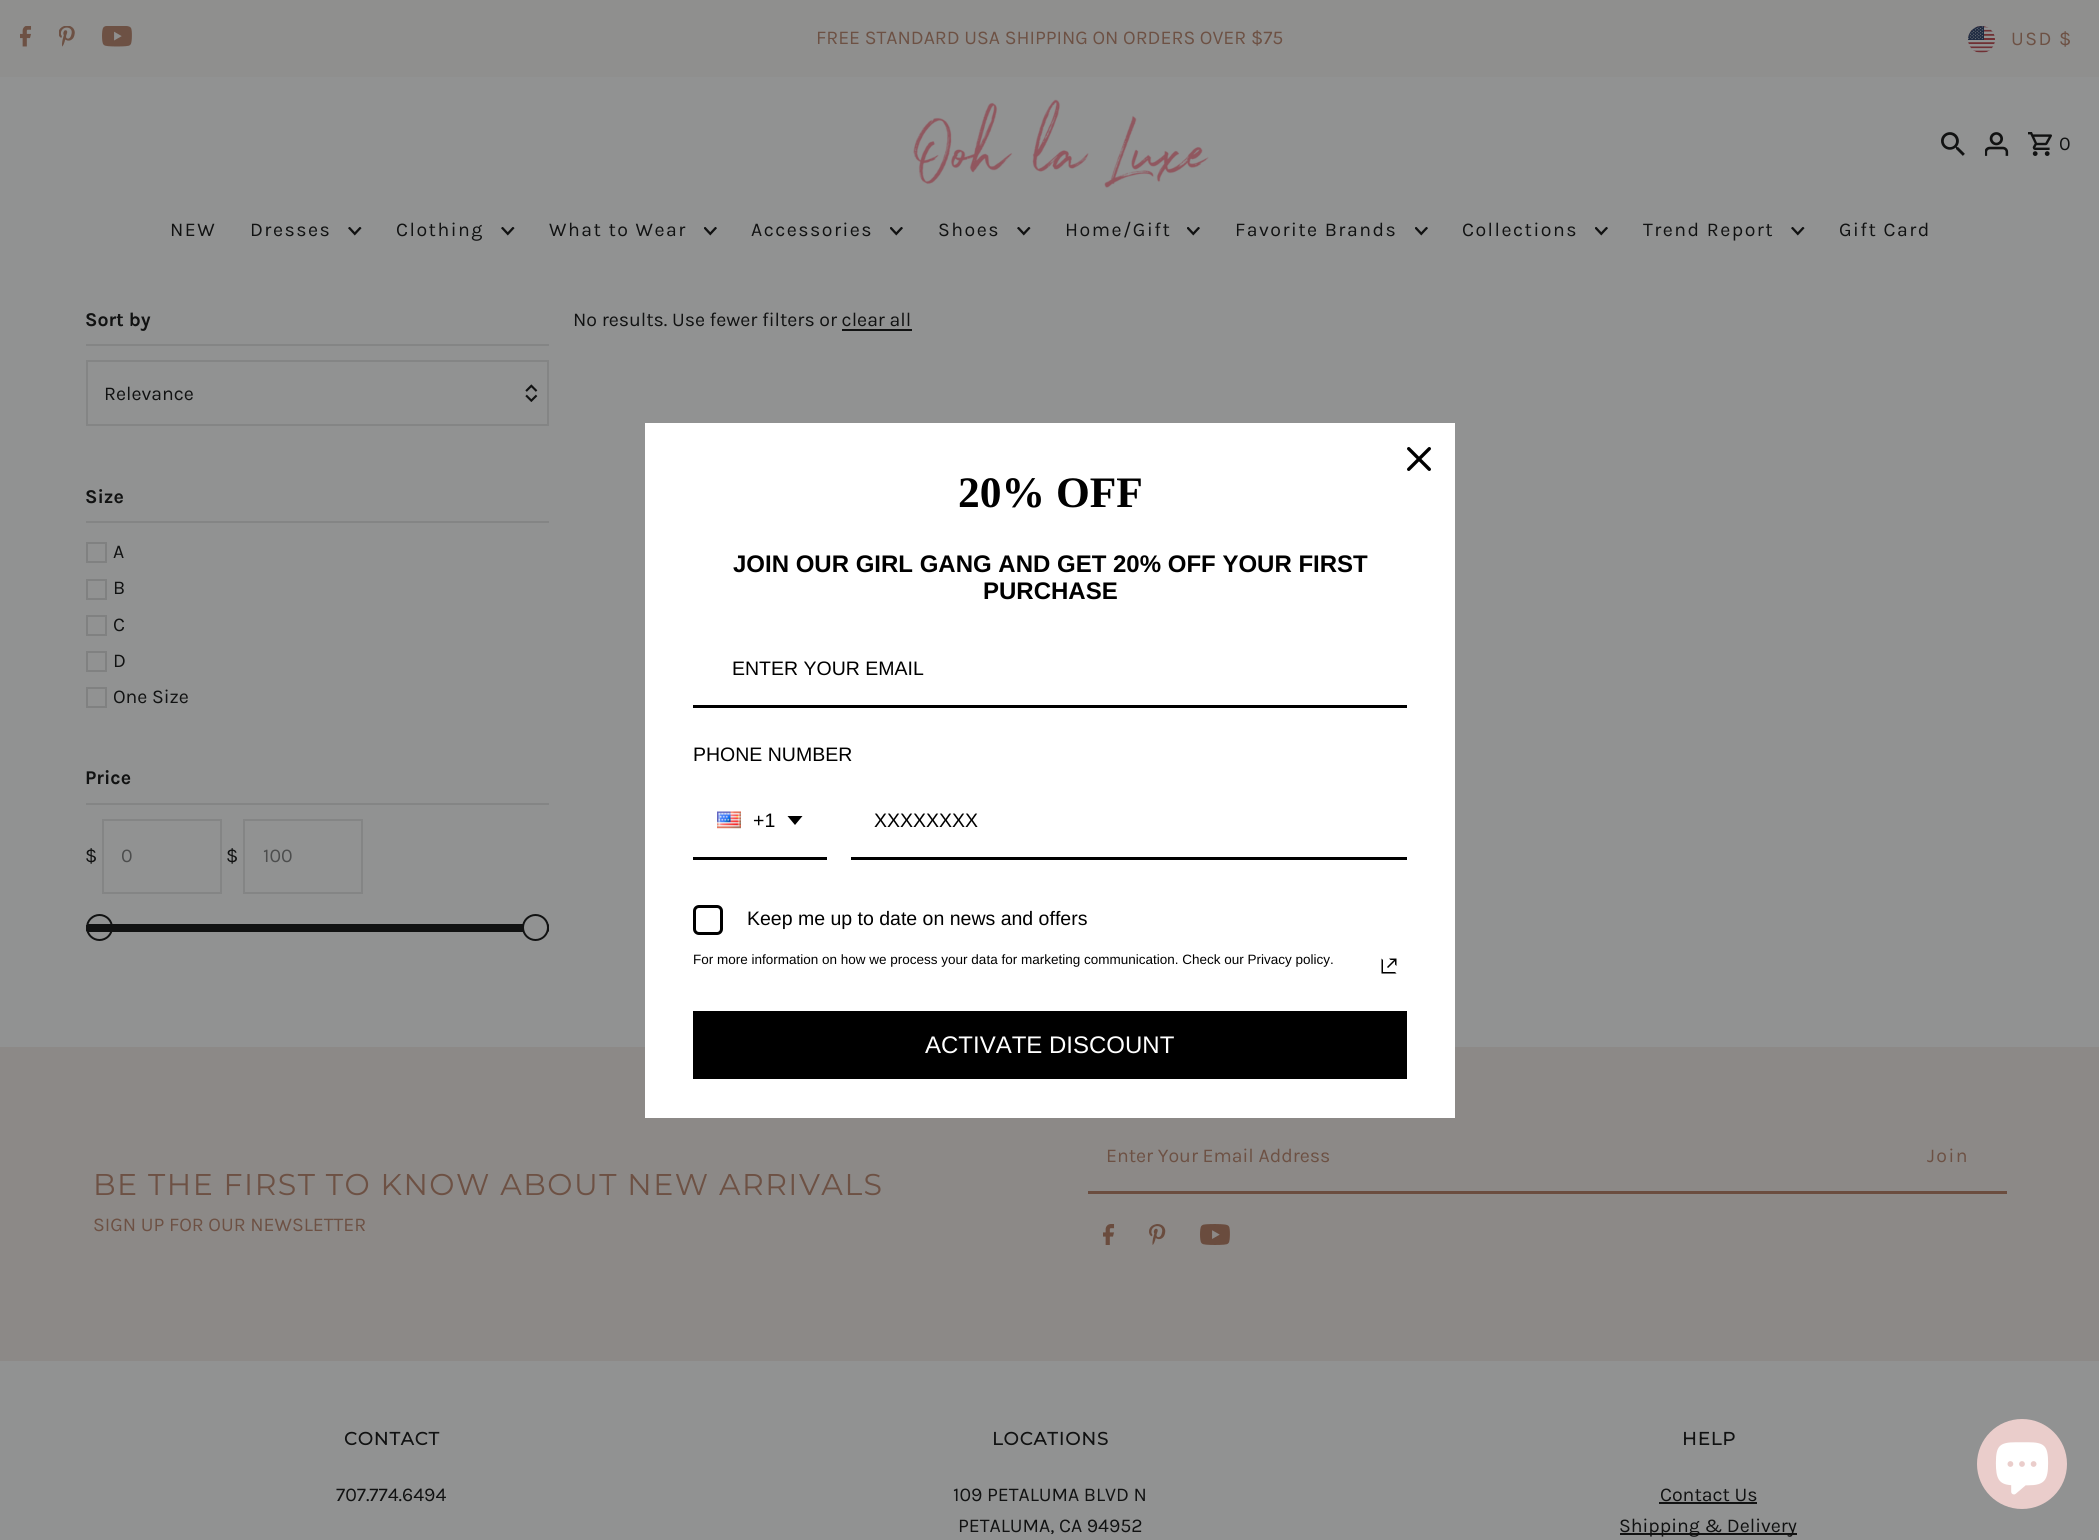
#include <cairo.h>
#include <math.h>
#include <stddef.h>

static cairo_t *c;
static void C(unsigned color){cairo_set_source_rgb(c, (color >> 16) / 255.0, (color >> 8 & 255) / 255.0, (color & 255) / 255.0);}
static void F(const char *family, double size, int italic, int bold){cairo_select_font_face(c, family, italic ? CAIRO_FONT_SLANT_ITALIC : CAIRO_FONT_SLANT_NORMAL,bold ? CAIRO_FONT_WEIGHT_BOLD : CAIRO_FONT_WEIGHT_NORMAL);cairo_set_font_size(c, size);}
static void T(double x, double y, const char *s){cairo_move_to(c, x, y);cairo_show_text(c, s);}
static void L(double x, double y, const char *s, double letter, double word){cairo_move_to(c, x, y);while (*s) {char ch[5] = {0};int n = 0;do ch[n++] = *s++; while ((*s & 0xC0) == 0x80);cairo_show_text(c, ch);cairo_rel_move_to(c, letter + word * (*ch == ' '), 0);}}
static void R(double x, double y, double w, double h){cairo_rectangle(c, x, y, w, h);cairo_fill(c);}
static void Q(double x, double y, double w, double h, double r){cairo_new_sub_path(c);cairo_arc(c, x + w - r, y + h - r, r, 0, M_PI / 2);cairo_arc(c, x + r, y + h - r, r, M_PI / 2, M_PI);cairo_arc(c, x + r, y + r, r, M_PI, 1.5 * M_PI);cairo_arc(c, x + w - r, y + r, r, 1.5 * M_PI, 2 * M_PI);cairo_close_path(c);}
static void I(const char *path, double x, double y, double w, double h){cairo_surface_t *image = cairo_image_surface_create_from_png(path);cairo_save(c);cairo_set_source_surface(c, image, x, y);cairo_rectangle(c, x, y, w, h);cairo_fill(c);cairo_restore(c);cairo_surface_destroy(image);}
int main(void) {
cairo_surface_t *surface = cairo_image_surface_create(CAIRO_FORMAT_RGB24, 2099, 1540);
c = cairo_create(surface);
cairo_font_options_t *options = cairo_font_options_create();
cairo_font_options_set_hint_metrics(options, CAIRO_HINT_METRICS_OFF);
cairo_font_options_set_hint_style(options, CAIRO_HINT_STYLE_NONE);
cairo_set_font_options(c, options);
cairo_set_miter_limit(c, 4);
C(0x919292);
cairo_paint(c);
C(0x8f8f8e);
R(0,0,2099,77);
I("1.png",20,26,12,21);
I("2.png",59,26,16,21);
I("3.png",102,26,30,21);
F("Karla",19.5,0,0);
C(0x6d5144);
T(816,44,"FREE STANDARD USA SHIPPING ON ORDERS OVER $75");
I("4.png",1968,26,27,27);
L(2011,45,"USD $",1.5,0);
I("5.png",913,99,296,89);
I("6.png",1941,132,24,24);
I("7.png",1985,132,24,24);
I("8.png",2028,132,24,24);
C(0x111212);
L(2059,150,"0",1.5,0);
L(170,236,"NEW",1.5,0);
L(250,236,"Dresses",1.5,0);
I("9.png",348,227,14,9);
L(396,236,"Clothing",1.5,0);
I("9.png",501,227,14,9);
L(549,236,"What to Wear",1.5,0);
I("10.png",704,227,13,9);
L(751,236,"Accessories",1.5,0);
I("10.png",890,227,13,9);
L(938,236,"Shoes",1.5,0);
I("9.png",1017,227,14,9);
L(1065,236,"Home/Gift",1.5,0);
I("10.png",1187,227,13,9);
L(1235,236,"Favorite Brands",1.5,0);
I("10.png",1415,227,13,9);
L(1462,236,"Collections",1.5,0);
I("10.png",1595,227,13,9);
L(1643,236,"Trend Report",1.5,0);
I("9.png",1791,227,14,9);
L(1839,236,"Gift Card",1.5,0);
C(0x848585);
R(86,344,463,2);
F("Karla",19.5,0,1);
C(0x111212);
T(85,326,"Sort by");
cairo_rectangle(c,87,361,461,64);
C(0x848585);
cairo_stroke(c);
F("Karla",19.5,0,0);
C(0x111212);
T(104,400,"Relevance");
I("11.png",525,384,13,18);
C(0x848585);
R(86,521,463,2);
F("Karla",19.5,0,1);
C(0x111212);
T(85,503,"Size");
cairo_rectangle(c,87,543,19,19);
C(0x808181);
cairo_stroke(c);
F("Karla",19.5,0,0);
C(0x111212);
T(113,558,"A");
cairo_rectangle(c,87,580,19,19);
C(0x808181);
cairo_stroke(c);
C(0x111212);
T(113,594,"B");
cairo_rectangle(c,87,616,19,19);
C(0x808181);
cairo_stroke(c);
C(0x111212);
T(113,631,"C");
cairo_rectangle(c,87,652,19,19);
C(0x808181);
cairo_stroke(c);
C(0x111212);
T(113,667,"D");
cairo_rectangle(c,87,688,19,19);
C(0x808181);
cairo_stroke(c);
C(0x111212);
T(113,703,"One Size");
C(0x848585);
R(86,803,463,2);
F("Karla",19.5,0,1);
C(0x111212);
T(85,784,"Price");
F("Karla",19.5,0,0);
T(85,862,"$");
cairo_rectangle(c,103,820,118,73);
C(0x848585);
cairo_stroke(c);
C(0x4c4d4d);
T(121,862,"0");
C(0x111212);
T(226,862,"$");
cairo_rectangle(c,244,820,118,73);
C(0x848585);
cairo_stroke(c);
C(0x4c4d4d);
T(263,862,"100");
cairo_new_path(c);
cairo_arc(c,99.5,927.5,12.5,0,2 * M_PI);
C(0x111212);
cairo_stroke(c);
C(0x919292);
R(86,924,27,8);
C(0x111212);
Q(86,924,463,8,1.5);
cairo_fill(c);
C(0x919292);
cairo_arc(c,535.5,927.5,12.5,0,2 * M_PI);
cairo_fill_preserve(c);
C(0x111212);
cairo_stroke(c);
T(573,326,"No results. Use fewer filters or clear all");
R(842,329,70,2);
C(0x8c8987);
R(0,1047,2099,314);
C(0x6b4d3f);
R(1088,1191,919,3);
C(0x6d5144);
T(1106,1162,"Enter Your Email Address");
L(1927,1162,"Join",1.5,0);
I("12.png",1103,1224,12,21);
I("13.png",1149,1224,17,21);
I("14.png",1200,1224,30,21);
F("Montserrat",30,0,0);
L(93,1195,"BE THE FIRST TO KNOW ABOUT NEW ARRIVALS",1.5,0);
F("Karla",19.5,0,0);
T(93,1231,"SIGN UP FOR OUR NEWSLETTER");
F("Montserrat",18,0,1);
C(0x111212);
L(344,1445,"CONTACT",1,0);
F("Karla",19.5,0,0);
T(336,1501,"707.774.6494");
F("Montserrat",18,0,1);
L(992,1445,"LOCATIONS",1,0);
F("Karla",19.5,0,0);
T(953,1501,"109 PETALUMA BLVD N");
T(958,1532,"PETALUMA, CA 94952");
F("Montserrat",18,0,1);
L(1682,1445,"HELP",1,0);
F("Karla",19.5,0,0);
T(1660,1501,"Contact Us");
R(1659,1502,98,2);
R(1620,1533,177,2);
T(1619,1532,"Shipping & Delivery");
C(0xffffff);
R(645,423,810,695);
I("15.png",1407,447,24,24);
F("Liberation Serif",43.5,0,1);
C(0x000000);
T(958,507,"20% OFF");
F("Liberation Sans",24,0,1);
T(733,572,"JOIN OUR GIRL GANG AND GET 20% OFF YOUR FIRST");
T(983,599,"PURCHASE");
R(693,705,714,3);
F("Liberation Sans",19.5,0,0);
T(732,675,"ENTER YOUR EMAIL");
T(693,761,"PHONE NUMBER");
R(693,857,134,3);
I("16.png",717,811,24,18);
T(753,827,"+1");
cairo_set_fill_rule(c,CAIRO_FILL_RULE_EVEN_ODD);
cairo_new_path(c);
cairo_move_to(c,787.5,816);
cairo_line_to(c,802.5,816);
cairo_line_to(c,795,825);
cairo_close_path(c);
cairo_fill(c);
R(851,857,556,3);
T(874,827,"XXXXXXXX");
Q(694.5,906.5,27,27,4.5);
cairo_set_line_width(c,3);
cairo_stroke(c);
T(747,925,"Keep me up to date on news and offers");
F("Liberation Sans",13.5,0,0);
T(693,964,"For more information on how we process your data for marketing communication. Check our Privacy policy.");
I("17.png",1381,958,16,16);
R(693,1011,714,68);
F("Liberation Sans",24,0,0);
C(0xffffff);
T(925,1053,"ACTIVATE DISCOUNT");
C(0xeacdcb);
cairo_new_path(c);
cairo_arc(c,2022,1464,45,0,2 * M_PI);
cairo_fill(c);
I("18.png",1995,1442,54,53);
cairo_surface_write_to_png(surface, "o.png");
cairo_font_options_destroy(options);
cairo_destroy(c);
cairo_surface_destroy(surface);
return 0;
}
